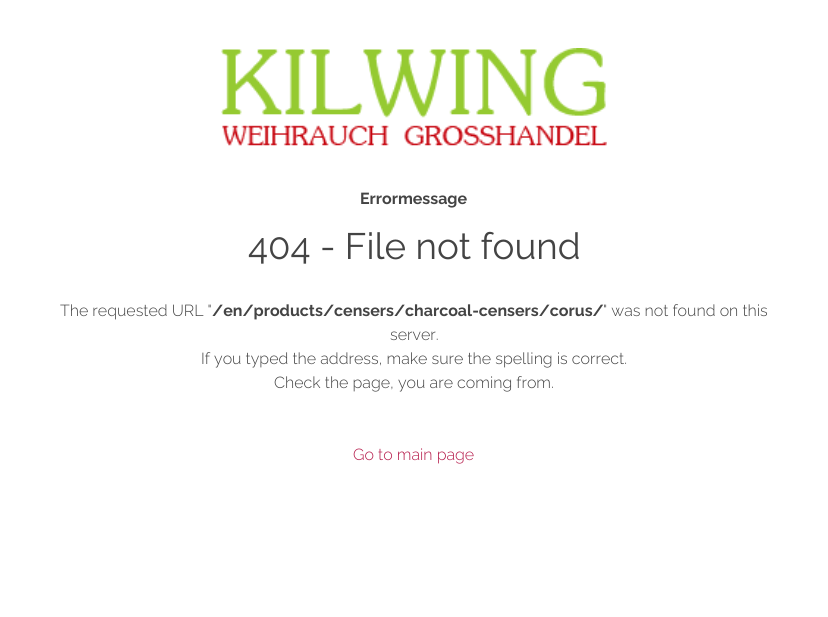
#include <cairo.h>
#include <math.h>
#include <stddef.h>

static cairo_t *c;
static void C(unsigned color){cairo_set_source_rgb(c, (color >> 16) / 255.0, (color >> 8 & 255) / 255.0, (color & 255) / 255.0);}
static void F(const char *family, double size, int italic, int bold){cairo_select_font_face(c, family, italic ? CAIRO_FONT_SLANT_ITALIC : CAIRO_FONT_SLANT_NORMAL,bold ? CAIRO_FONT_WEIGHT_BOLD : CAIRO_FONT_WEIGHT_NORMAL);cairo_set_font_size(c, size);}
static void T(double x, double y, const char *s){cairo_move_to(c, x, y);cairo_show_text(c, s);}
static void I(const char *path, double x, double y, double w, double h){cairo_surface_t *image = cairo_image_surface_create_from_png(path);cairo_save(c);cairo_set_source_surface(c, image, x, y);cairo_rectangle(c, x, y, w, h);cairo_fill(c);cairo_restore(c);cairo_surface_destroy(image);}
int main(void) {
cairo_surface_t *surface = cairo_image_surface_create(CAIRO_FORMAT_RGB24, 828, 617);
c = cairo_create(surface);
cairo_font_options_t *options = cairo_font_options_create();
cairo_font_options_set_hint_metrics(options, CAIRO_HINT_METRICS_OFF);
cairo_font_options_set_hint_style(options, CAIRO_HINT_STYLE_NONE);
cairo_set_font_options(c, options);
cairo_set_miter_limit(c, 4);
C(0xffffff);
cairo_paint(c);
I("1.png",221,48,386,98);
F("Raleway",16,0,1);
C(0x444444);
T(360,204,"Errormessage");
F("Raleway",36.75,0,0);
T(248,259,"404 - File not found");
F("Raleway Light",16,0,0);
T(60,316,"The requested URL \"");
F("Raleway",16,0,1);
T(212,316,"/en/products/censers/charcoal-censers/corus/");
F("Raleway Light",16,0,0);
T(603,316,"\" was not found on this");
T(390,340,"server.");
T(201,364,"If you typed the address, make sure the spelling is correct.");
T(274,388,"Check the page, you are coming from.");
C(0xb61d4c);
T(353,460,"Go to main page");
cairo_surface_write_to_png(surface, "o.png");
cairo_font_options_destroy(options);
cairo_destroy(c);
cairo_surface_destroy(surface);
return 0;
}
